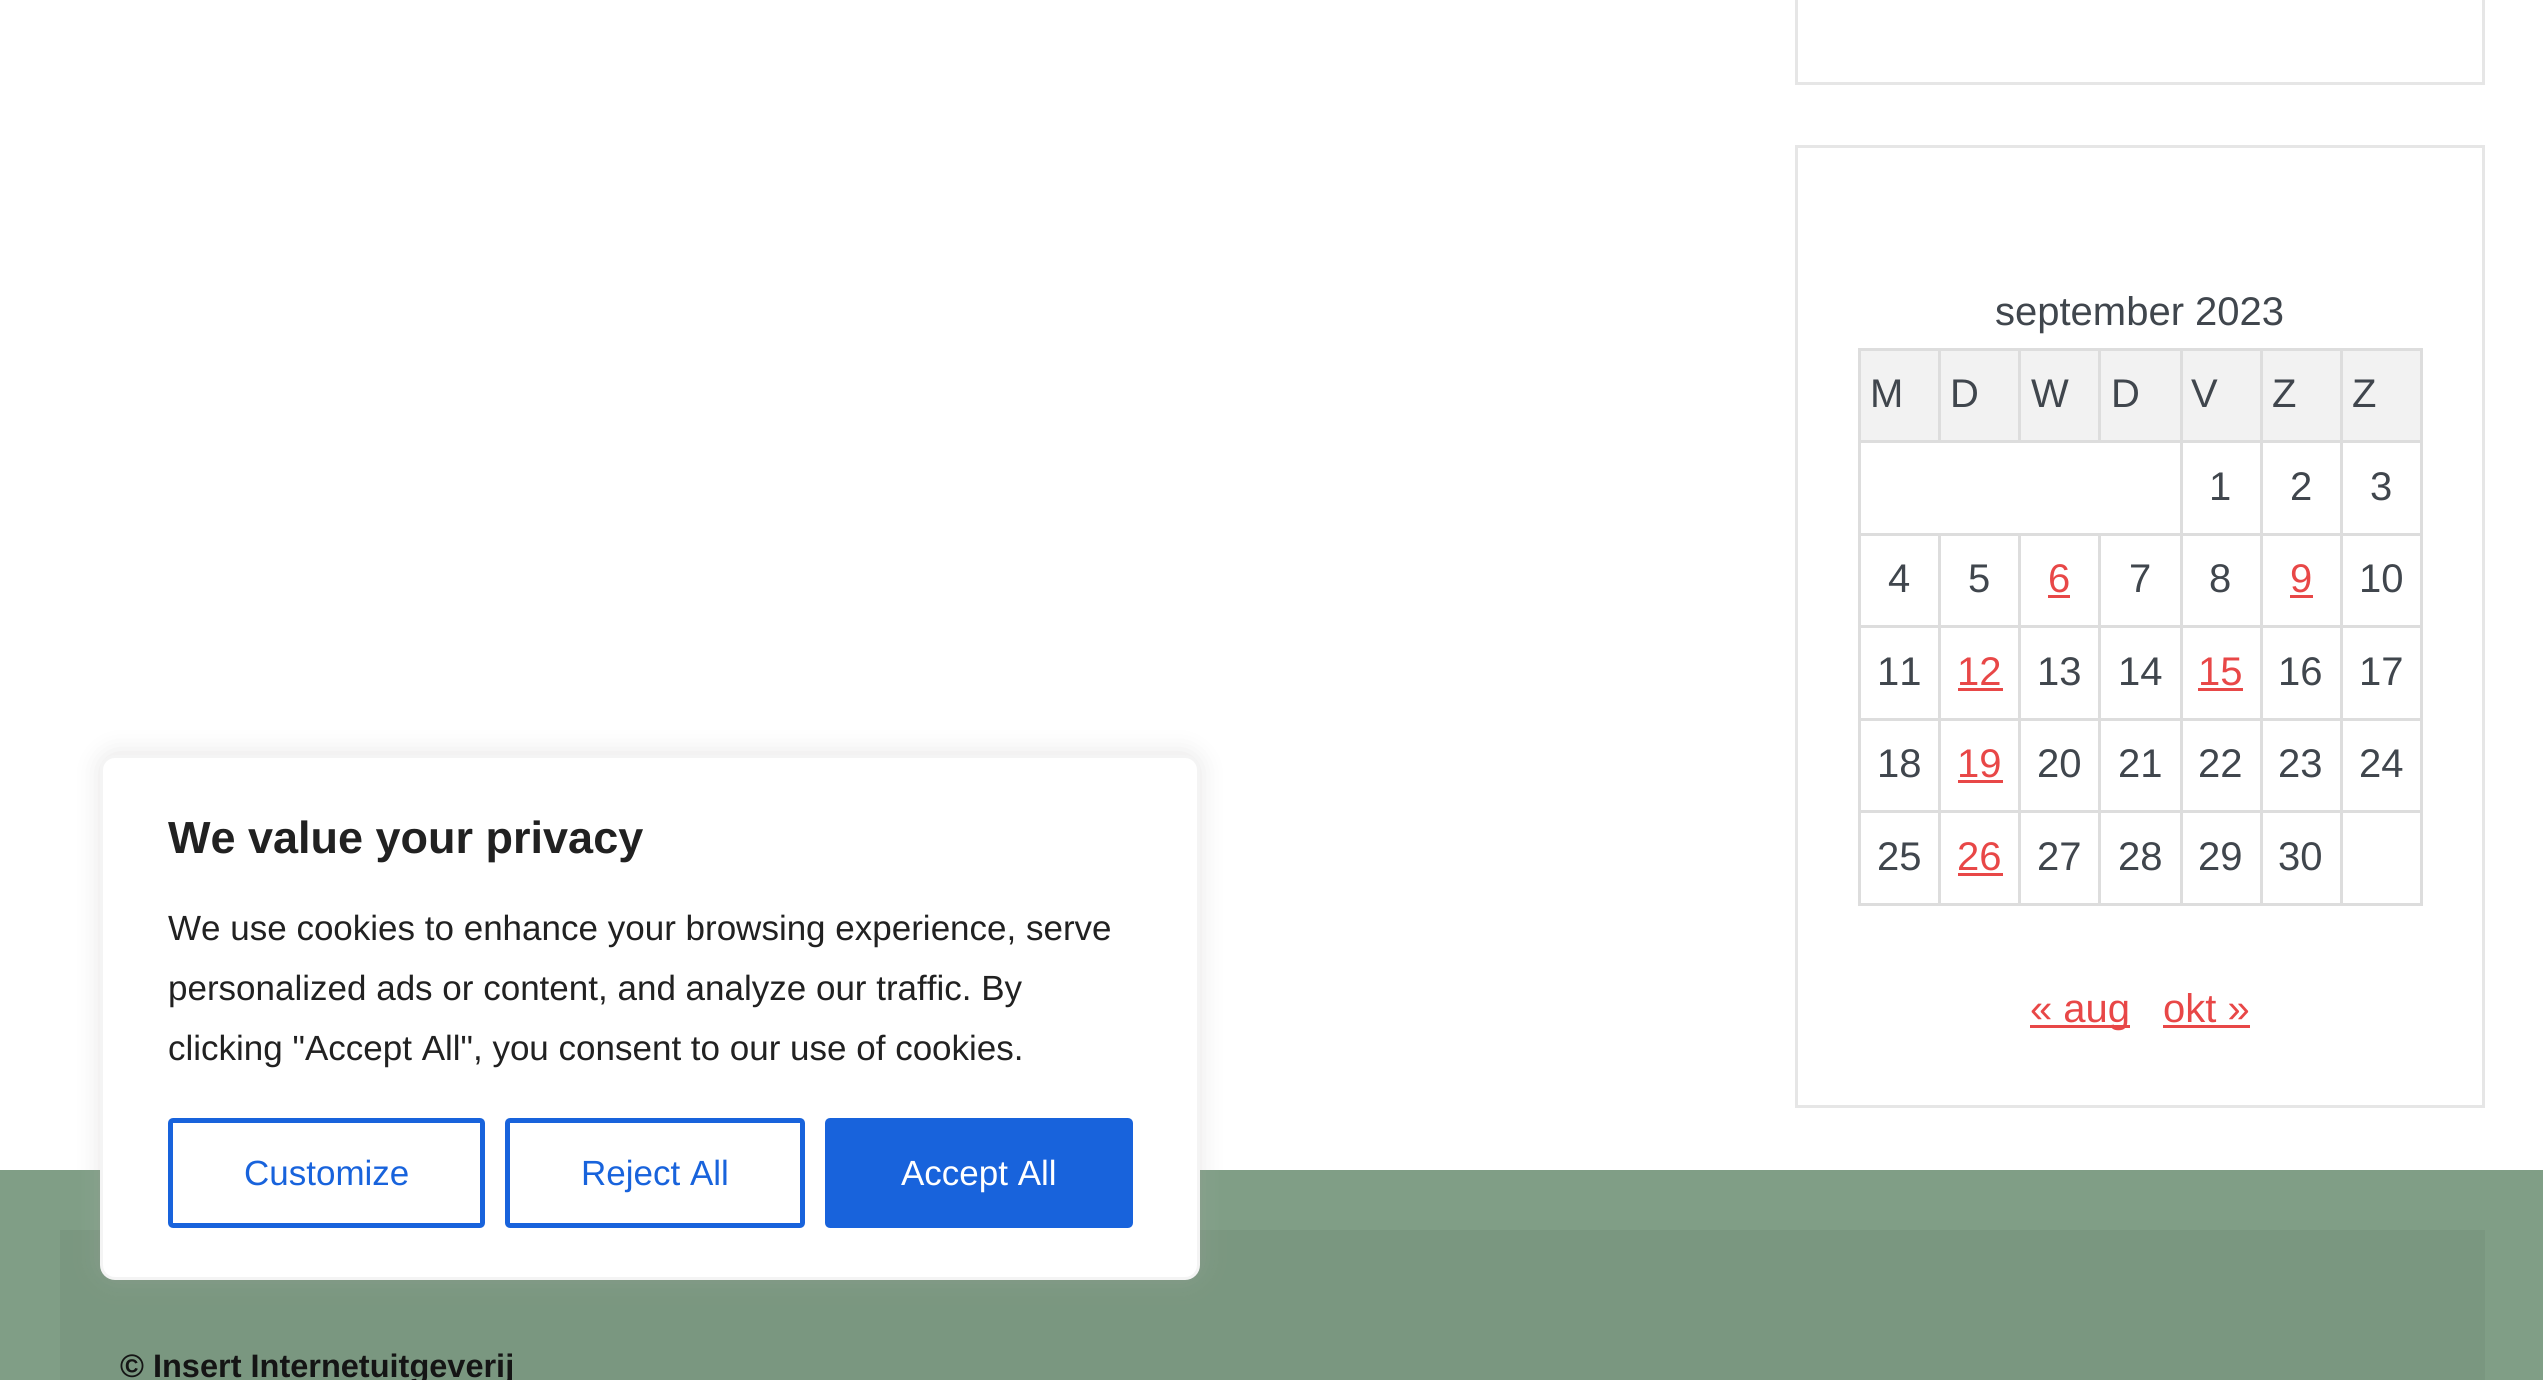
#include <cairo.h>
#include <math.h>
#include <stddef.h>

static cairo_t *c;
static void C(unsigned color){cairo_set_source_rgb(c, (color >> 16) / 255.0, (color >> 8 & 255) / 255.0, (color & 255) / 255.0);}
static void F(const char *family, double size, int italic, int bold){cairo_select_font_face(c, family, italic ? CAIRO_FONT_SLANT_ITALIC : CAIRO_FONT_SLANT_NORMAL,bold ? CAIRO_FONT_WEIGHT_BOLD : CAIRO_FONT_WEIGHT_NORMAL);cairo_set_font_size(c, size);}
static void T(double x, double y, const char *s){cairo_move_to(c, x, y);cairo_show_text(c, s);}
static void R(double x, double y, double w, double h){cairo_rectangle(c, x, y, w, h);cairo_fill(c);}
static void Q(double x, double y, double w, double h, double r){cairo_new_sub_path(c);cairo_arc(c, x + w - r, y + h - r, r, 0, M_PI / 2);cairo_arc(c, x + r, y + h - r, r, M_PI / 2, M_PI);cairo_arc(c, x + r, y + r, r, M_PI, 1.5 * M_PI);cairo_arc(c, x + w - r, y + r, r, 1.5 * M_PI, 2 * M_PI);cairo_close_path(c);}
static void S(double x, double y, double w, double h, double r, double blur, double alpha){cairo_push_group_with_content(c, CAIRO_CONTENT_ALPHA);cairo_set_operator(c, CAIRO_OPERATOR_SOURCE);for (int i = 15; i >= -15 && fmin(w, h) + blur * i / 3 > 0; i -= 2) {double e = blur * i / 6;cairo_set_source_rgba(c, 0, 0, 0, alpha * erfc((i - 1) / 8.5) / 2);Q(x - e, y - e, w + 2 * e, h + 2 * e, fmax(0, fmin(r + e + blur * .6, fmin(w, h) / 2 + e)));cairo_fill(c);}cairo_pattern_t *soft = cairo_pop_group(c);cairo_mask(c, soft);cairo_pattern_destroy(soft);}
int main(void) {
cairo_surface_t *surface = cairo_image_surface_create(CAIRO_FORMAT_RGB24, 2543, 1380);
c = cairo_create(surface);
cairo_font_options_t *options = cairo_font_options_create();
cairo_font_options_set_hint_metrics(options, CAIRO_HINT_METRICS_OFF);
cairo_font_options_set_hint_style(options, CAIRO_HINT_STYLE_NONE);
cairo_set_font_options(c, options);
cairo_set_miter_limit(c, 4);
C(0xffffff);
cairo_paint(c);
cairo_rectangle(c,1796.5,-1.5,687,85);
C(0xe6e6e6);
cairo_set_line_width(c,3);
cairo_stroke(c);
cairo_rectangle(c,1796.5,146.5,687,960);
cairo_stroke(c);
F("Liberation Sans",40,0,0);
C(0x40464d);
T(1995,325,"september 2023");
C(0xf2f2f2);
R(1861,351,77,89);
C(0xdddddd);
R(2340,348,83,3);
R(2340,440,83,3);
R(2340,533,83,3);
R(2340,625,83,3);
R(2340,718,83,3);
R(2340,810,83,3);
R(2420,810,3,95);
R(2340,903,83,3);
R(2340,810,3,95);
R(2260,810,83,3);
R(2340,718,3,95);
R(2260,718,83,3);
R(2340,625,3,95);
R(2260,625,83,3);
R(2340,533,3,95);
R(2260,533,83,3);
R(2340,440,3,95);
R(2260,440,83,3);
R(2340,348,3,95);
R(2260,348,83,3);
R(2260,903,83,3);
R(2260,810,3,95);
R(2180,810,83,3);
R(2260,718,3,95);
R(2180,718,83,3);
R(2260,625,3,95);
R(2180,625,83,3);
R(2260,533,3,95);
R(2180,533,83,3);
R(2260,440,3,95);
R(2180,440,83,3);
R(2260,348,3,95);
R(2180,348,83,3);
R(2180,903,83,3);
R(2180,810,3,95);
R(2098,810,85,3);
R(2180,718,3,95);
R(2098,718,85,3);
R(2180,625,3,95);
R(2098,625,85,3);
R(2180,533,3,95);
R(2098,533,85,3);
R(2180,440,3,95);
R(1858,440,325,3);
R(2180,348,3,95);
R(2098,348,85,3);
R(2098,348,3,95);
R(2018,348,82,3);
R(2018,348,3,95);
R(1938,348,82,3);
R(1938,348,3,95);
R(1858,348,82,3);
R(2098,903,85,3);
R(2098,810,3,95);
R(2018,810,82,3);
R(2098,718,3,95);
R(2018,718,82,3);
R(2098,625,3,95);
R(2018,625,82,3);
R(2098,533,3,95);
R(2018,533,82,3);
R(2018,903,82,3);
R(2018,810,3,95);
R(1938,810,82,3);
R(2018,718,3,95);
R(1938,718,82,3);
R(2018,625,3,95);
R(1938,625,82,3);
R(2018,533,3,95);
R(1938,533,82,3);
R(1938,903,82,3);
R(1938,810,3,95);
R(1858,810,82,3);
R(1938,718,3,95);
R(1858,718,82,3);
R(1938,625,3,95);
R(1858,625,82,3);
R(1938,533,3,95);
R(1858,533,82,3);
R(1858,903,82,3);
R(1858,810,3,95);
R(1858,718,3,95);
R(1858,625,3,95);
R(1858,533,3,95);
R(1858,440,3,95);
R(1858,348,3,95);
C(0x40464d);
T(1870,407,"M");
C(0xf2f2f2);
R(1941,351,77,89);
C(0x40464d);
T(1950,407,"D");
C(0xf2f2f2);
R(2021,351,77,89);
C(0x40464d);
T(2031,407,"W");
C(0xf2f2f2);
R(2101,351,79,89);
C(0x40464d);
T(2111,407,"D");
C(0xf2f2f2);
R(2183,351,77,89);
C(0x40464d);
T(2191,407,"V");
C(0xf2f2f2);
R(2263,351,77,89);
C(0x40464d);
T(2272,407,"Z");
C(0xf2f2f2);
R(2343,351,77,89);
C(0xdddddd);
R(2420,718,3,95);
R(2420,625,3,95);
R(2420,533,3,95);
R(2420,440,3,95);
R(2420,348,3,95);
C(0x40464d);
T(2352,407,"Z");
T(2209,500,"1");
T(2290,500,"2");
T(2370,500,"3");
T(1888,592,"4");
T(1968,592,"5");
C(0xe84747);
T(2048,592,"6");
R(2048,595,22,3);
C(0x40464d);
T(2129,592,"7");
T(2209,592,"8");
C(0xe84747);
T(2290,592,"9");
R(2290,595,23,3);
C(0x40464d);
T(2359,592,"10");
T(1877,685,"11");
C(0xe84747);
T(1957,685,"12");
R(1958,688,45,3);
C(0x40464d);
T(2037,685,"13");
T(2118,685,"14");
C(0xe84747);
T(2198,685,"15");
R(2198,688,45,3);
C(0x40464d);
T(2278,685,"16");
T(2359,685,"17");
T(1877,777,"18");
C(0xe84747);
T(1957,777,"19");
R(1958,780,45,3);
C(0x40464d);
T(2037,777,"20");
T(2118,777,"21");
T(2198,777,"22");
T(2278,777,"23");
T(2359,777,"24");
T(1877,870,"25");
C(0xe84747);
T(1957,870,"26");
R(1958,873,45,3);
C(0x40464d);
T(2037,870,"27");
T(2118,870,"28");
T(2198,870,"29");
T(2278,870,"30");
C(0xe84747);
R(2030,1025,100,3);
T(2030,1022,"« aug");
T(2163,1022,"okt »");
R(2163,1025,87,3);
C(0x809e86);
R(0,1170,2543,210);
C(0x7a9780);
R(60,1230,2425,150);
F("Liberation Sans",32.5,0,1);
C(0x151515);
T(120,1377,"© Insert Internetuitgeverij");
C(0xacabab);
S(100,753,1100,525,15,12.5,.3);
C(0xffffff);
Q(101.5,756.5,1097,522,13.5);
cairo_fill_preserve(c);
C(0xf4f4f4);
cairo_stroke(c);
F("Liberation Sans",45,0,1);
C(0x212121);
T(168,853,"We value your privacy");
F("Liberation Sans",35,0,0);
T(168,940,"We use cookies to enhance your browsing experience, serve");
T(168,1000,"personalized ads or content, and analyze our traffic. By");
T(168,1060,"clicking \"Accept All\", you consent to our use of cookies.");
Q(170.5,1120.5,312,105,2.5);
C(0x1863dc);
cairo_set_line_width(c,5);
cairo_stroke(c);
T(244,1185,"Customize");
Q(507.5,1120.5,295,105,2.5);
cairo_stroke(c);
T(581,1185,"Reject All");
Q(827.5,1120.5,303,105,2.5);
cairo_fill_preserve(c);
cairo_stroke(c);
C(0xffffff);
T(901,1185,"Accept All");
cairo_surface_write_to_png(surface, "o.png");
cairo_font_options_destroy(options);
cairo_destroy(c);
cairo_surface_destroy(surface);
return 0;
}
